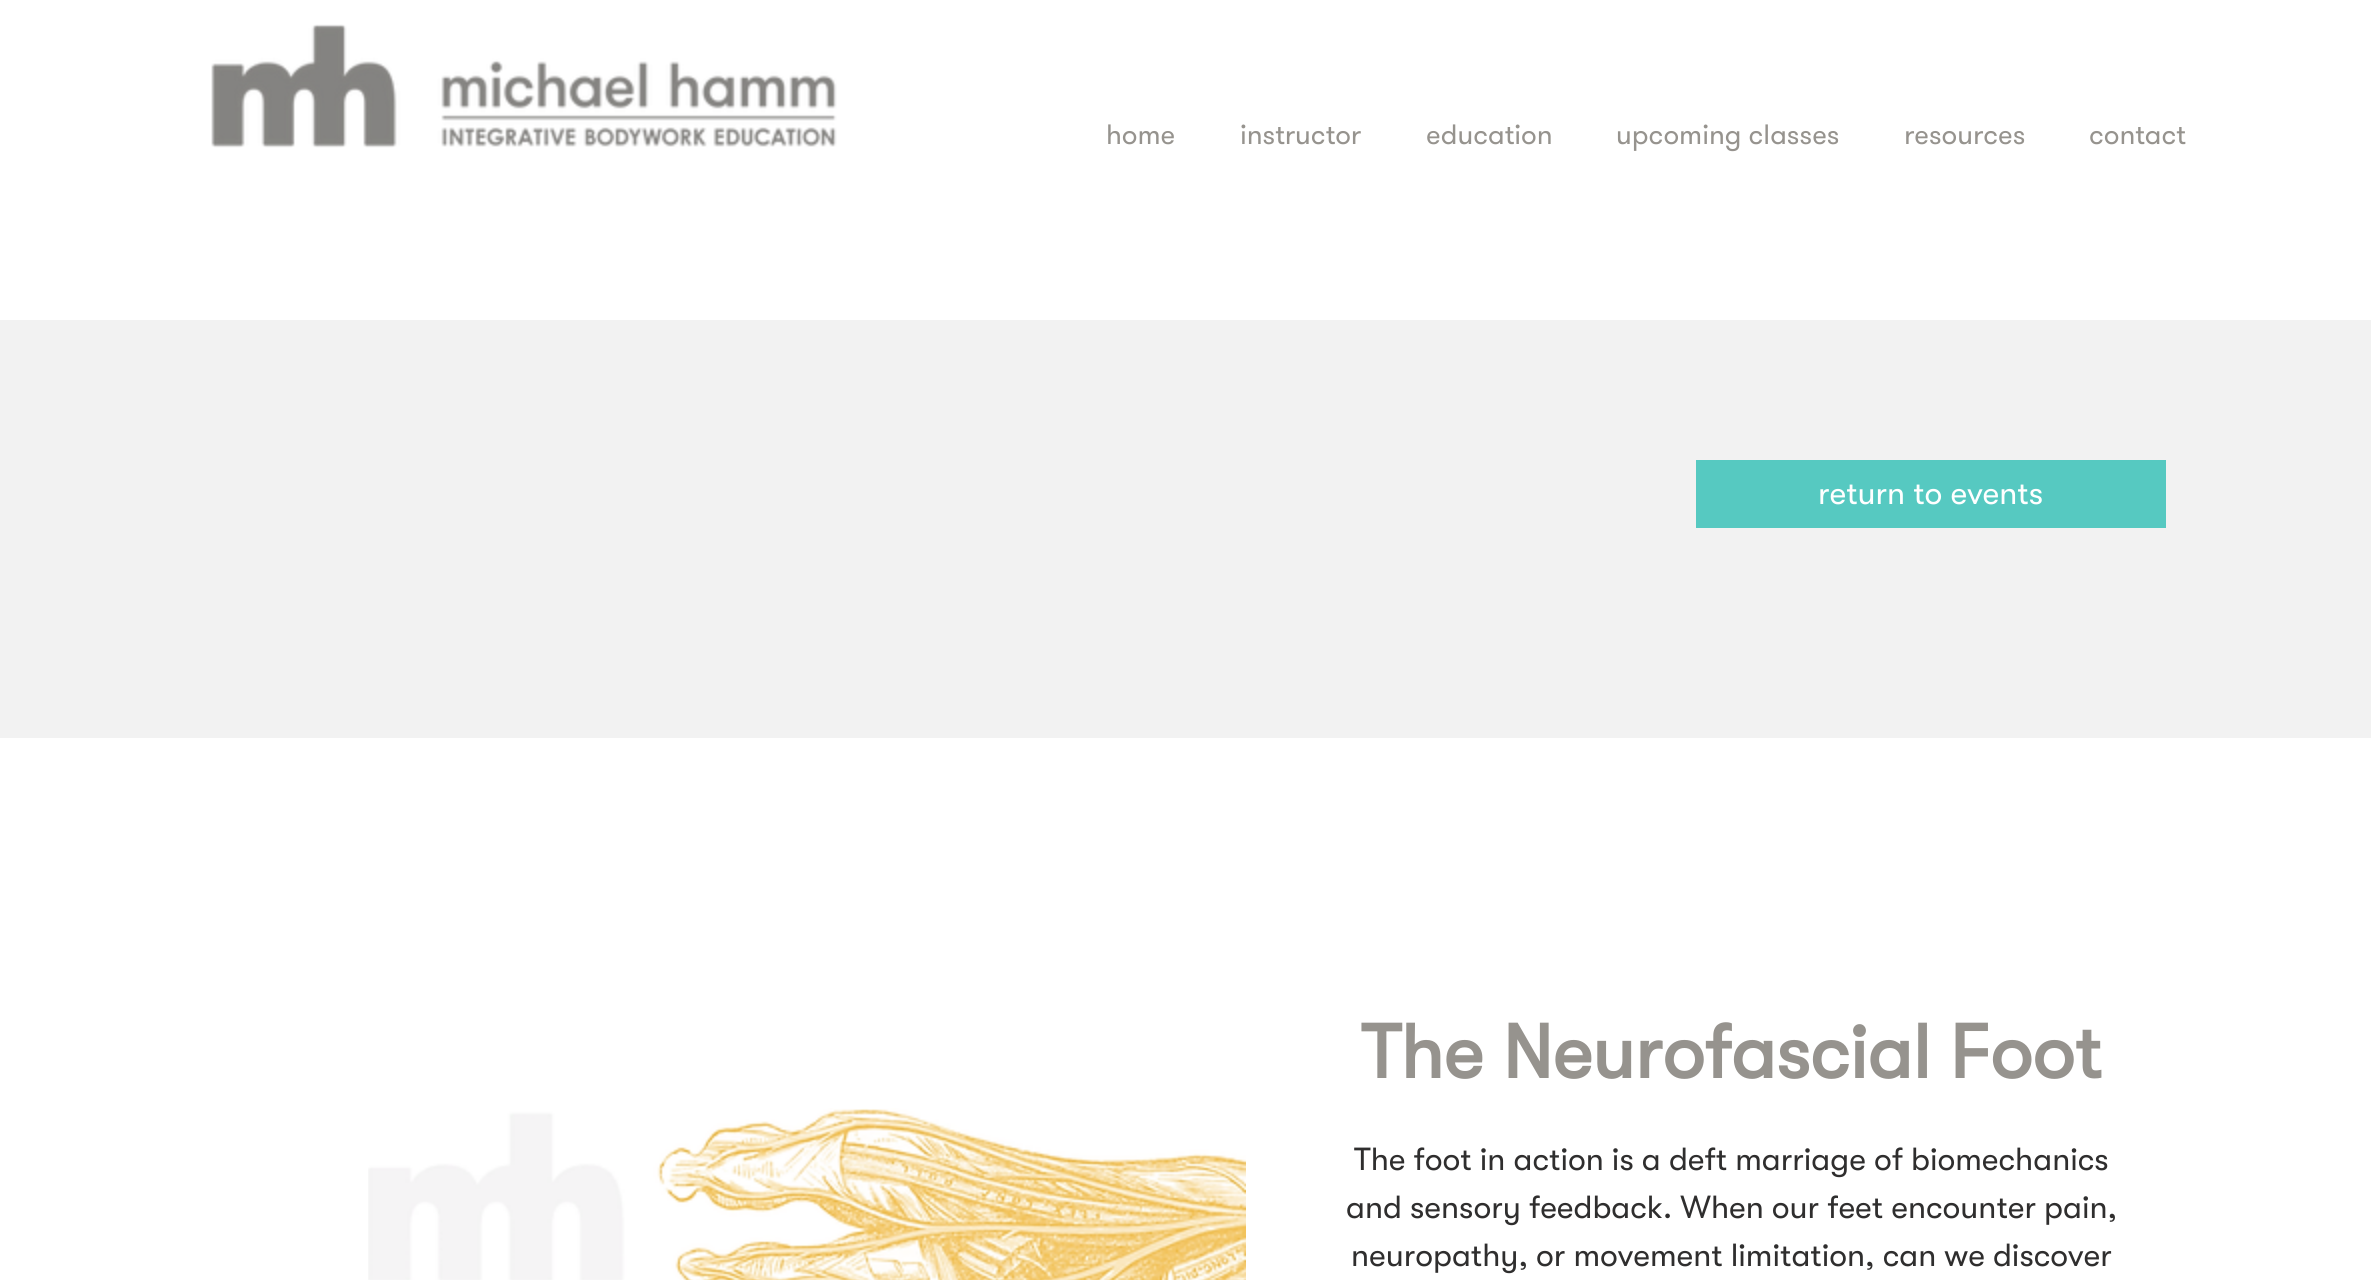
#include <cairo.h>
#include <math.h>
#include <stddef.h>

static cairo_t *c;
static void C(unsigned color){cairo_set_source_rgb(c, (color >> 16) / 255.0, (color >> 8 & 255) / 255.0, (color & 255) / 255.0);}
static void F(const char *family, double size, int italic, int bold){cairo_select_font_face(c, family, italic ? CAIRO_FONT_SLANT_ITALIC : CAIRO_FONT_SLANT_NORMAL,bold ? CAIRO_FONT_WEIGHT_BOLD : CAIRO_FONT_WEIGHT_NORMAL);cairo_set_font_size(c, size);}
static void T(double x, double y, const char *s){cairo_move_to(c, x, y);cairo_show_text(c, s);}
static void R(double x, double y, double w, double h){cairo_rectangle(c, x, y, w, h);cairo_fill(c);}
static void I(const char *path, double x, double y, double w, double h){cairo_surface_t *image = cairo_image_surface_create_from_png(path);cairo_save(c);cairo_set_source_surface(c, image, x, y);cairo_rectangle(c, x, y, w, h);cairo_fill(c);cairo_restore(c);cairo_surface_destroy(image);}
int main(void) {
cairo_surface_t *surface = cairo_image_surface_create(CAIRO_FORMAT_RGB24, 2371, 1280);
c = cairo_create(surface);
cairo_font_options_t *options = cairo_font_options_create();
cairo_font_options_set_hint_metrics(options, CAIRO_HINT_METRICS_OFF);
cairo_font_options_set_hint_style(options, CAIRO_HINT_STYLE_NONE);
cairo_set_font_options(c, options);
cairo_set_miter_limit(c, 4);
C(0xffffff);
cairo_paint(c);
I("1.png",211,24,626,124);
F("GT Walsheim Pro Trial",28,0,0);
C(0x96938e);
T(1106,144,"home");
T(1240,144,"instructor");
T(1426,144,"education");
T(1616,144,"upcoming classes");
T(1904,144,"resources");
T(2089,144,"contact");
C(0xf2f2f2);
R(0,320,2371,418);
C(0x56c9c1);
R(1696,460,470,68);
F("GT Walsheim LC",32,0,0);
C(0xffffff);
T(1818,504,"return to events");
I("2.png",368,1108,878,172);
F("GT Walsheim LC",76,0,1);
C(0x96938e);
T(1361,1078,"The Neurofascial Foot");
F("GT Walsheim",32,0,0);
C(0x2f2e2e);
T(1354,1170,"The foot in action is a deft marriage of biomechanics");
T(1346,1218,"and sensory feedback. When our feet encounter pain,");
T(1351,1266,"neuropathy, or movement limitation, can we discover");
cairo_surface_write_to_png(surface, "o.png");
cairo_font_options_destroy(options);
cairo_destroy(c);
cairo_surface_destroy(surface);
return 0;
}
